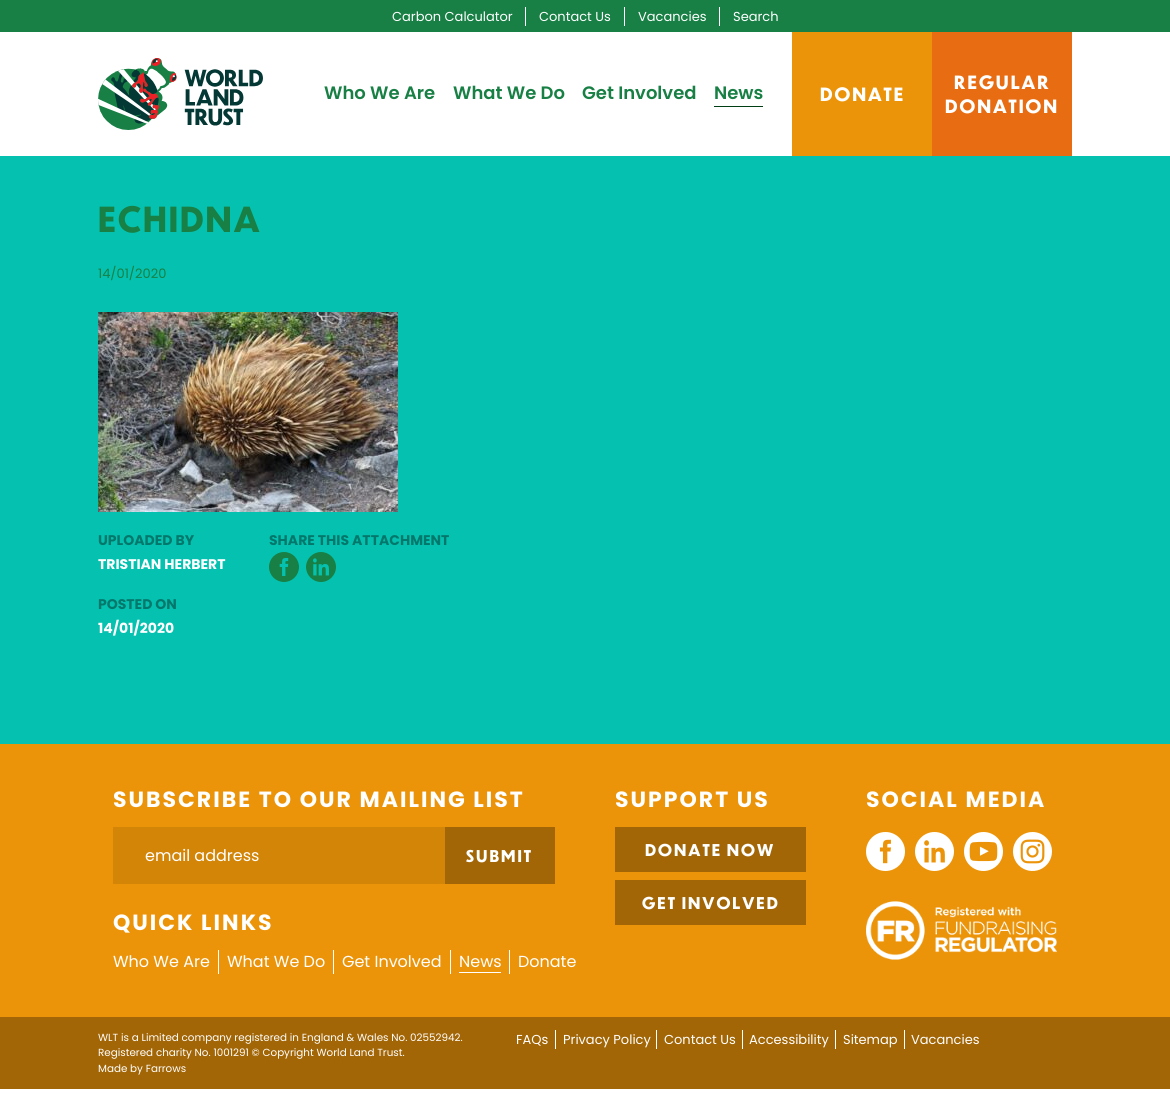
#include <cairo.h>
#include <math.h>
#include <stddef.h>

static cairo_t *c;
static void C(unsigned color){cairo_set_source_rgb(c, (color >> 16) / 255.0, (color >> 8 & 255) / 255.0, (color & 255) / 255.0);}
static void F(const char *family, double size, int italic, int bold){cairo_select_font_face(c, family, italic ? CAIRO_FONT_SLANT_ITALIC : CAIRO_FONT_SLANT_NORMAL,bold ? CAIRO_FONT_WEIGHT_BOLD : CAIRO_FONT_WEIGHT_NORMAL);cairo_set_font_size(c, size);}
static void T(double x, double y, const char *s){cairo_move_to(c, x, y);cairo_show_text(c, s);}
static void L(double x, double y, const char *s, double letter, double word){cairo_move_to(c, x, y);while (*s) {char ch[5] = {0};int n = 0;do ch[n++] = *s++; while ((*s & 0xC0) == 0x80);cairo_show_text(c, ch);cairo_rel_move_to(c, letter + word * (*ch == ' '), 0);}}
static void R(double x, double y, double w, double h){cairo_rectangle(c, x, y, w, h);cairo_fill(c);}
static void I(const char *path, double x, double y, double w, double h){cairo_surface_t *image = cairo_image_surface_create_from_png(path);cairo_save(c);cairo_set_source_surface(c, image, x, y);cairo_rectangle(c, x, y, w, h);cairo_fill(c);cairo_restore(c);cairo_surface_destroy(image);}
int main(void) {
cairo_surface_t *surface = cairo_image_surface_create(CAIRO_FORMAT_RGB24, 1170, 1115);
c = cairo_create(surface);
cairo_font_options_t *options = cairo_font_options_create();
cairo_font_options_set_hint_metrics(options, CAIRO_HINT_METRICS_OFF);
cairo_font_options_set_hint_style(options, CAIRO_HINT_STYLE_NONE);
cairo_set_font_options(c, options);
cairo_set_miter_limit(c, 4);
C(0xffffff);
cairo_paint(c);
C(0x188045);
R(0,0,1170,32);
C(0xffffff);
R(525,7,1,19);
F("Poppins",13,0,0);
T(392,21,"Carbon Calculator");
R(624,7,1,19);
T(539,21,"Contact Us");
R(719,7,1,19);
T(638,21,"Vacancies");
T(733,21,"Search");
I("1.png",98,58,165,72);
F("Poppins SemiBold",18,0,0);
C(0x188045);
T(324,99,"Who We Are");
T(453,99,"What We Do");
T(582,99,"Get Involved");
T(714,99,"News");
C(0x003e13);
R(714,106,49,1);
C(0xec9409);
R(792,32,140,124);
F("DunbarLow",18,0,1);
C(0xffffff);
L(820,101,"DONATE",2,0);
C(0xe86d12);
R(932,32,140,124);
C(0xffffff);
L(954,89,"REGULAR",2,0);
L(945,113,"DONATION",2,0);
C(0x04c2af);
R(0,156,1170,588);
F("DunbarLow",34,0,1);
C(0x188045);
L(98,232,"ECHIDNA",2,0);
F("Poppins",13,0,0);
T(98,278,"14/01/2020");
I("2.png",98,312,300,200);
F("Poppins",14,0,1);
C(0x02776b);
T(98,545,"UPLOADED BY");
C(0xffffff);
T(98,569,"TRISTIAN HERBERT");
C(0x02776b);
T(269,545,"SHARE THIS ATTACHMENT");
I("3.png",269,552,30,30);
I("4.png",306,552,30,30);
T(98,609,"POSTED ON");
C(0xffffff);
T(98,633,"14/01/2020");
C(0xec9409);
R(0,744,1170,273);
F("Poppins",22,0,1);
C(0xffffff);
L(113,807,"SUBSCRIBE TO OUR MAILING LIST",2,0);
C(0xd38508);
R(113,827,332,57);
F("Poppins",16,0,0);
C(0xffffff);
T(145,861,"email address");
C(0xa26606);
R(445,827,110,57);
F("DunbarLow",16,0,1);
C(0xffffff);
L(466,862,"SUBMIT",2,0);
F("Poppins",22,0,1);
L(615,807,"SUPPORT US",2,0);
C(0xa26606);
R(615,827,191,45);
F("DunbarLow",16,0,1);
C(0xffffff);
L(645,856,"DONATE NOW",2,0);
C(0xa26606);
R(615,880,191,45);
C(0xffffff);
L(642,909,"GET INVOLVED",2,0);
F("Poppins",22,0,1);
L(866,807,"SOCIAL MEDIA",2,0);
I("5.png",866,832,39,39);
I("6.png",915,832,39,39);
I("7.png",964,832,39,39);
I("8.png",1013,832,39,39);
I("9.png",866,901,191,59);
L(113,930,"QUICK LINKS",2,0);
R(218,950,1,24);
F("Poppins",16,0,0);
T(113,967,"Who We Are");
R(333,950,1,24);
T(227,967,"What We Do");
R(450,950,1,24);
T(342,967,"Get Involved");
R(509,950,1,24);
T(459,967,"News");
R(459,972,42,1);
T(518,967,"Donate");
C(0xa26606);
R(0,1017,1170,72);
F("Poppins",10.35,0,0);
C(0xffffff);
T(98,1041,"WLT is a Limited company registered in England & Wales No. 02552942.");
T(98,1056,"Registered charity No. 1001291 © Copyright World Land Trust.");
T(98,1072,"Made by Farrows");
R(555,1030,1,19);
F("Poppins",13,0,0);
T(516,1044,"FAQs");
R(656,1030,1,19);
T(563,1044,"Privacy Policy");
R(742,1030,1,19);
T(664,1044,"Contact Us");
R(835,1030,1,19);
T(749,1044,"Accessibility");
R(904,1030,1,19);
T(843,1044,"Sitemap");
T(911,1044,"Vacancies");
cairo_surface_write_to_png(surface, "o.png");
cairo_font_options_destroy(options);
cairo_destroy(c);
cairo_surface_destroy(surface);
return 0;
}
